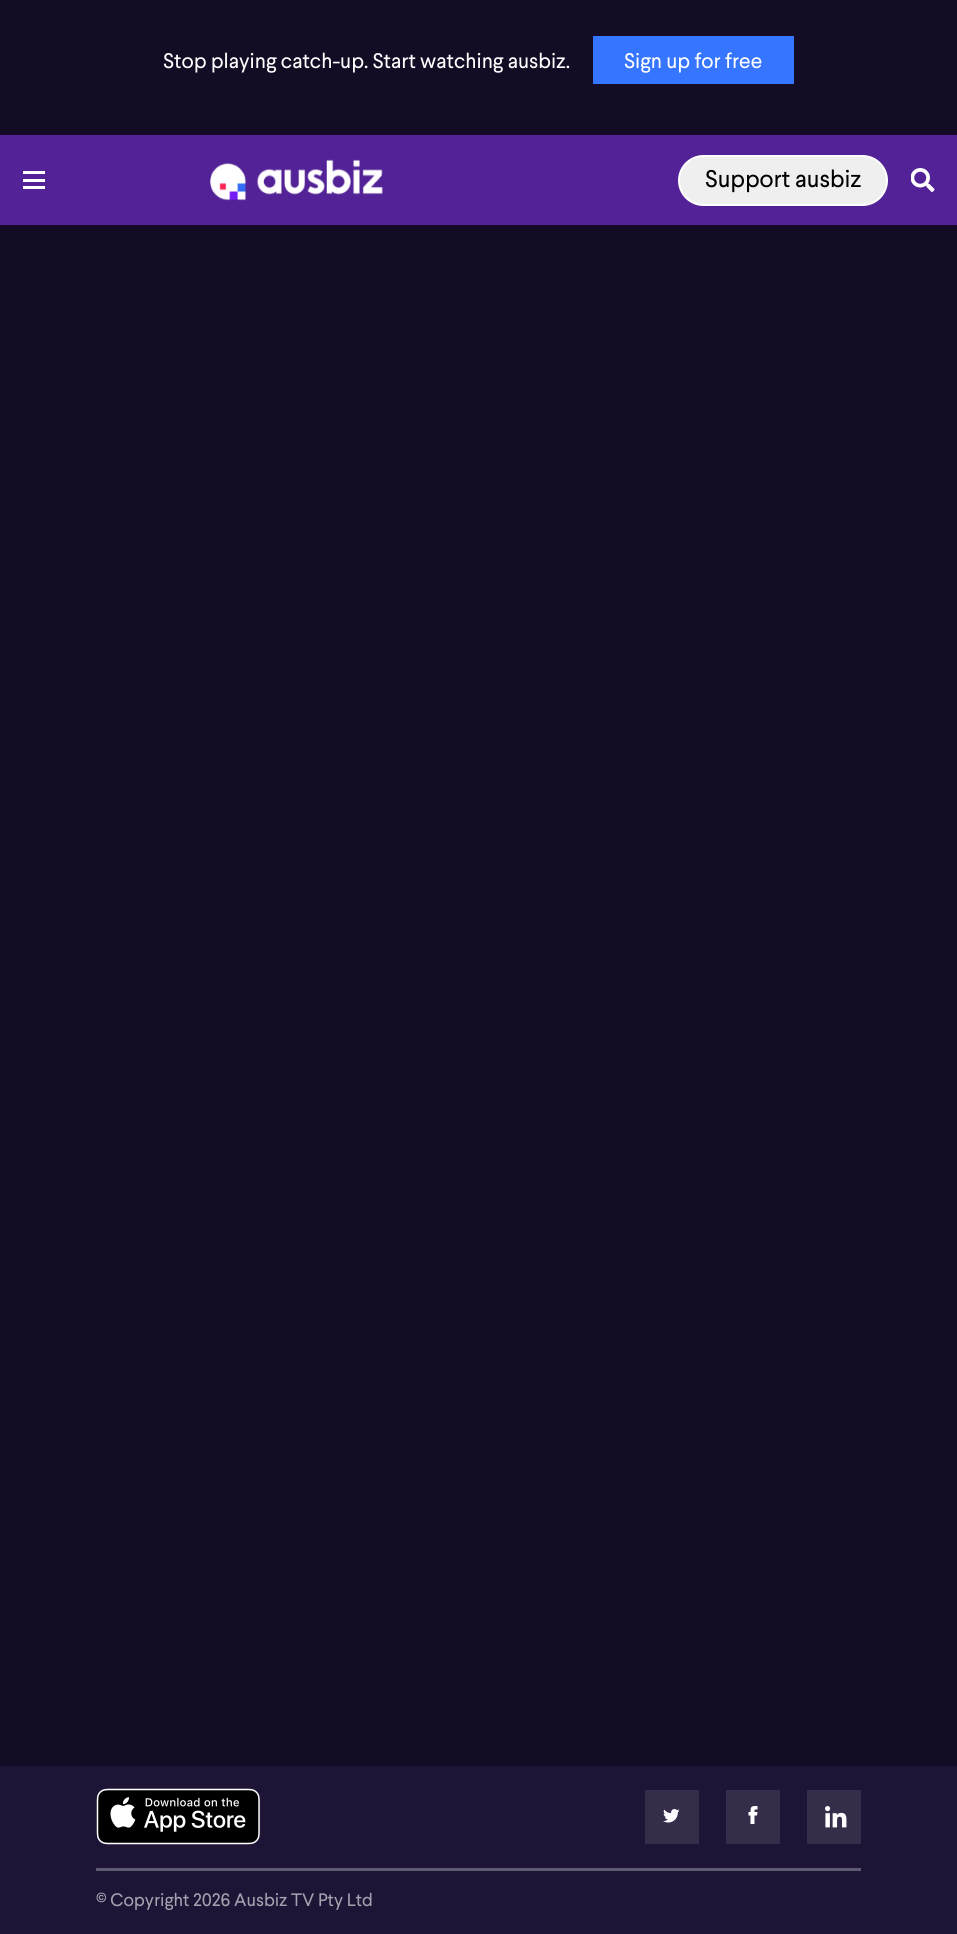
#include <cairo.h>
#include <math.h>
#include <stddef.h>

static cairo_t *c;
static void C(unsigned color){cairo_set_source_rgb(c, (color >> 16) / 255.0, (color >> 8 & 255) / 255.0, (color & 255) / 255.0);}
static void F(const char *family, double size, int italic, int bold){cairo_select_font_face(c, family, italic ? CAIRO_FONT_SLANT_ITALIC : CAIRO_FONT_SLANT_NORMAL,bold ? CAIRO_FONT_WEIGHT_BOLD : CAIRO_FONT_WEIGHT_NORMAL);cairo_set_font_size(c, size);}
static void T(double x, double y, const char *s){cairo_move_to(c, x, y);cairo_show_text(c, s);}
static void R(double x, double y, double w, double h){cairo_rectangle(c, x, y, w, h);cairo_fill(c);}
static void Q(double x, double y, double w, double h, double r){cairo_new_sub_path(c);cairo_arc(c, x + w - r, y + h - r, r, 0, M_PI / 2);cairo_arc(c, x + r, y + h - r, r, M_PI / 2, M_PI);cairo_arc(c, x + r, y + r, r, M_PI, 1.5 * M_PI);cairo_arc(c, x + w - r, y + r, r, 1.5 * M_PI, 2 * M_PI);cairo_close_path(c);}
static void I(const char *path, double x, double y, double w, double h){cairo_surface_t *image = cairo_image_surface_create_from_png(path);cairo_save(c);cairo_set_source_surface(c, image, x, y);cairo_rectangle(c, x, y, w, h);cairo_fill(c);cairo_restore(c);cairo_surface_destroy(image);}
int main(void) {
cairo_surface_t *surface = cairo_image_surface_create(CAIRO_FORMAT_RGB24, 957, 1934);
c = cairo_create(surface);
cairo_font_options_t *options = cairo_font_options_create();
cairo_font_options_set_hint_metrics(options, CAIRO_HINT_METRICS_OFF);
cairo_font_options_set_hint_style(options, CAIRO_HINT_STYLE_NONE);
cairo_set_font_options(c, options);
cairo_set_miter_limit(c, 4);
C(0x140c25);
cairo_paint(c);
F("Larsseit",21,0,0);
C(0xffffff);
T(163,68,"Stop playing catch-up. Start watching ausbiz.");
C(0x3675ff);
R(593,36,201,48);
C(0xffffff);
T(624,68,"Sign up for free");
C(0x522296);
R(0,135,957,90);
C(0xffffff);
R(23,171,22,3);
R(23,179,22,3);
R(23,186,22,3);
I("1.png",210,159,173,42);
C(0xefefef);
Q(679,156,208,49,24.5);
cairo_fill_preserve(c);
C(0xffffff);
cairo_stroke(c);
F("Larsseit",24,0,0);
C(0x000000);
T(705,187,"Support ausbiz");
I("2.png",911,168,24,24);
C(0x1e1436);
R(0,1766,957,168);
I("3.png",96,1788,164,57);
I("4.png",645,1790,54,54);
C(0x362d4b);
R(726,1790,54,54);
C(0xffffff);
cairo_set_fill_rule(c,CAIRO_FILL_RULE_EVEN_ODD);
cairo_new_path(c);
cairo_move_to(c,754.5,1824);
cairo_line_to(c,750.5,1824);
cairo_line_to(c,750.5,1815.5);
cairo_line_to(c,748.5,1815.5);
cairo_line_to(c,748.5,1812);
cairo_line_to(c,750.5,1812);
cairo_curve_to(c,750.5,1806,751.5,1806,757.5,1806);
cairo_line_to(c,757.5,1809.5);
cairo_curve_to(c,754.5,1809.5,754.5,1809,754.5,1812);
cairo_line_to(c,757.5,1812);
cairo_line_to(c,757,1815.5);
cairo_line_to(c,754.5,1815.5);
cairo_close_path(c);
cairo_fill(c);
I("5.png",807,1790,54,54);
C(0x5d5b74);
R(96,1868,765,3);
F("Larsseit",18,0,0);
C(0xa5a1af);
T(96,1906,"© Copyright 2026 Ausbiz TV Pty Ltd");
cairo_surface_write_to_png(surface, "o.png");
cairo_font_options_destroy(options);
cairo_destroy(c);
cairo_surface_destroy(surface);
return 0;
}
